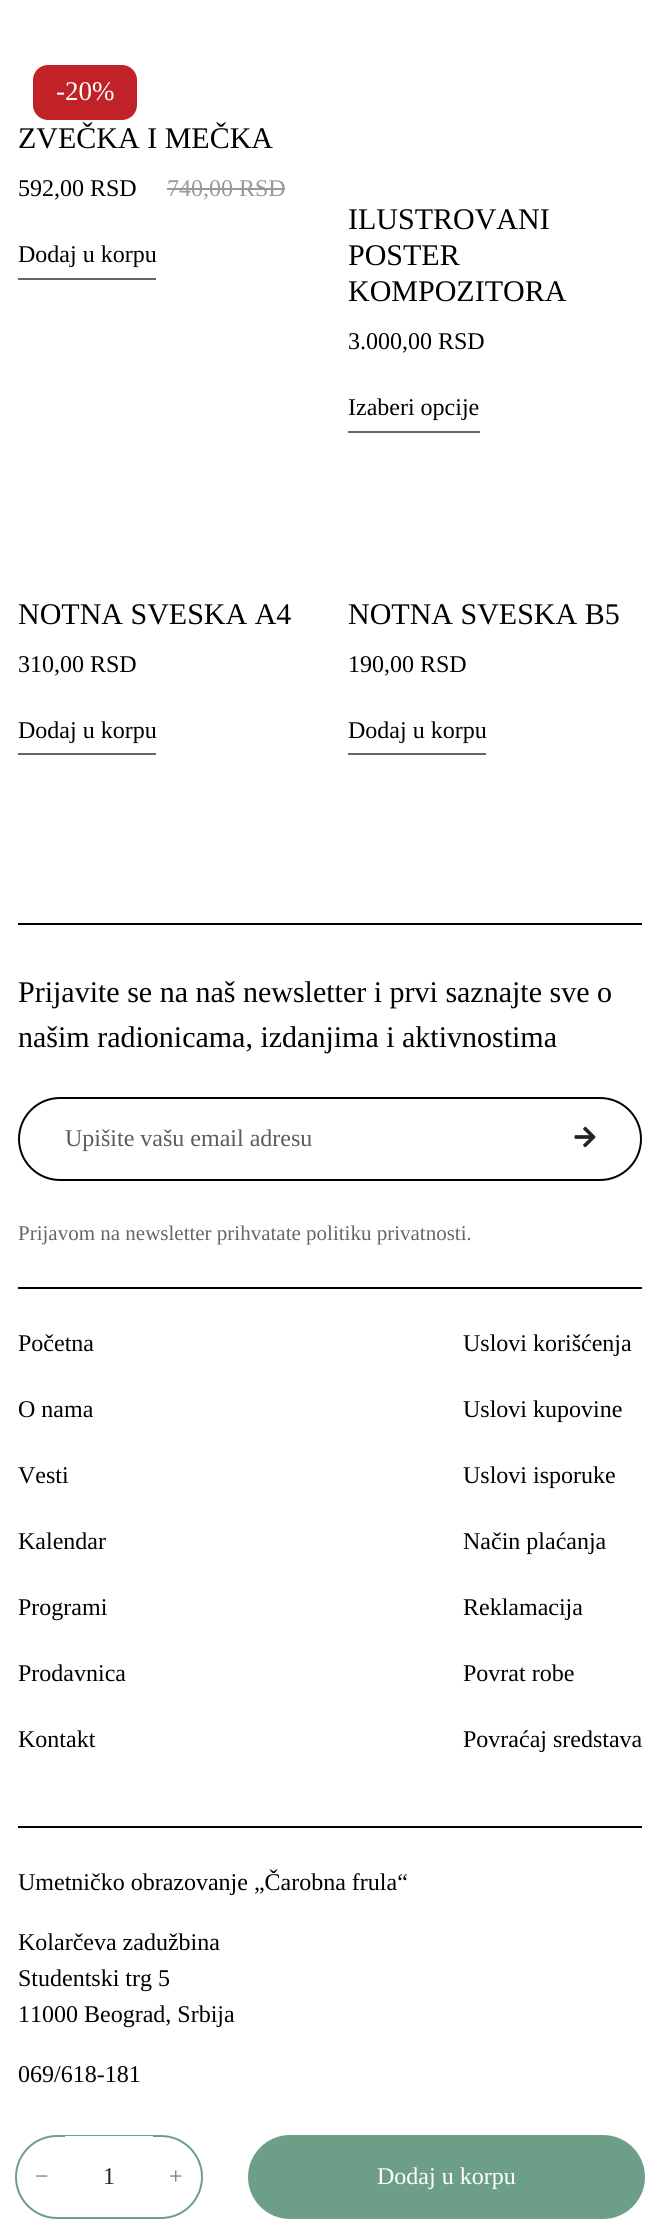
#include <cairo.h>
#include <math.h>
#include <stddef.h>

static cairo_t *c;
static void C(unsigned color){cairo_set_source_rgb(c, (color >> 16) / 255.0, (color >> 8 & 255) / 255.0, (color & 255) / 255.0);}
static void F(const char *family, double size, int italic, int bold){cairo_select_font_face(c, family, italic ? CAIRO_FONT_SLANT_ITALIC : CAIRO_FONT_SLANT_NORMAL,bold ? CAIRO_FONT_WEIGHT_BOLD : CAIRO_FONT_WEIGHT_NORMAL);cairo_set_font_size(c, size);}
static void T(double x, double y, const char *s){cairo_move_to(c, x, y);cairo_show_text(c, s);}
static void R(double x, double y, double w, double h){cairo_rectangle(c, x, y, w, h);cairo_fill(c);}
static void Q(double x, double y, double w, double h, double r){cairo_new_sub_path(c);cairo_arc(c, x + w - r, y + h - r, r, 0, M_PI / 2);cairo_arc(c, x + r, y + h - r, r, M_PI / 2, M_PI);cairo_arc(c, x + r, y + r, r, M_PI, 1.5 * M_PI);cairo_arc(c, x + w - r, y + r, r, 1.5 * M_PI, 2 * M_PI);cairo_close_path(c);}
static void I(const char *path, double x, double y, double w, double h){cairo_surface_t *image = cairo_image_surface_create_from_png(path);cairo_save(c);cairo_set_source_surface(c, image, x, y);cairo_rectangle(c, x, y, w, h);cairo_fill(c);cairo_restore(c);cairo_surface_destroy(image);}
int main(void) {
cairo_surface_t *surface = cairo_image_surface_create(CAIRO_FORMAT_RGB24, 660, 2240);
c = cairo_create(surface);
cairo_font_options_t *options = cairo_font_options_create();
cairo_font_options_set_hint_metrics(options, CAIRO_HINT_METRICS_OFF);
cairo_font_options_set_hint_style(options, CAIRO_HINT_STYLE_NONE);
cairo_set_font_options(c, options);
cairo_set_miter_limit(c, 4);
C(0xffffff);
cairo_paint(c);
C(0xc12228);
Q(33,65,104,55,15);
cairo_fill(c);
F("Liberation Serif",27,0,0);
C(0xffffff);
T(56,100,"-20%");
F("Liberation Serif",30,0,0);
C(0x000000);
T(18,148,"ZVEČKA I MEČKA");
F("Liberation Serif",24,0,0);
T(18,196,"592,00 RSD");
C(0x999999);
T(167,196,"740,00 RSD");
R(167,188,118,2);
C(0x000000);
T(18,262,"Dodaj u korpu");
C(0x666666);
R(18,278,138,2);
F("Liberation Serif",30,0,0);
C(0x000000);
T(348,229,"ILUSTROVANI");
T(348,265,"POSTER");
T(348,301,"KOMPOZITORA");
F("Liberation Serif",24,0,0);
T(348,349,"3.000,00 RSD");
T(348,415,"Izaberi opcije");
C(0x666666);
R(348,431,132,2);
F("Liberation Serif",30,0,0);
C(0x000000);
T(18,624,"NOTNA SVESKA A4");
F("Liberation Serif",24,0,0);
T(18,672,"310,00 RSD");
T(18,738,"Dodaj u korpu");
C(0x666666);
R(18,753,138,2);
F("Liberation Serif",30,0,0);
C(0x000000);
T(348,624,"NOTNA SVESKA B5");
F("Liberation Serif",24,0,0);
T(348,672,"190,00 RSD");
T(348,738,"Dodaj u korpu");
C(0x666666);
R(348,753,138,2);
Q(16,2136,186,82,41);
C(0x6d9f88);
cairo_stroke(c);
C(0x6c757d);
T(35,2184,"−");
C(0xffffff);
R(65,2136,88,1);
C(0x212529);
T(103,2184,"1");
C(0x6c757d);
T(169,2184,"+");
C(0x6d9f88);
Q(248,2135,397,84,42);
cairo_fill(c);
C(0xffffff);
T(377,2184,"Dodaj u korpu");
C(0x000000);
R(18,923,624,2);
F("Liberation Serif",30,0,0);
T(18,1002,"Prijavite se na naš newsletter i prvi saznajte sve o");
T(18,1047,"našim radionicama, izdanjima i aktivnostima");
Q(19,1098,622,82,41);
cairo_stroke(c);
F("Liberation Serif",24,0,0);
C(0x595c5f);
T(65,1146,"Upišite vašu email adresu");
I("1.png",574,1126,22,22);
F("Liberation Serif",21,0,0);
C(0x666666);
T(18,1240,"Prijavom na newsletter prihvatate politiku privatnosti.");
C(0x000000);
R(18,1287,624,2);
R(18,1826,624,2);
F("Liberation Serif",24,0,0);
T(18,1351,"Početna");
T(18,1417,"O nama");
T(18,1483,"Vesti");
T(18,1549,"Kalendar");
T(18,1615,"Programi");
T(18,1681,"Prodavnica");
T(18,1747,"Kontakt");
T(463,1351,"Uslovi korišćenja");
T(463,1417,"Uslovi kupovine");
T(463,1483,"Uslovi isporuke");
T(463,1549,"Način plaćanja");
T(463,1615,"Reklamacija");
T(463,1681,"Povrat robe");
T(463,1747,"Povraćaj sredstava");
T(18,1890,"Umetničko obrazovanje „Čarobna frula“");
T(18,1950,"Kolarčeva zadužbina");
T(18,1986,"Studentski trg 5");
T(18,2022,"11000 Beograd, Srbija");
T(18,2082,"069/618-181");
cairo_surface_write_to_png(surface, "o.png");
cairo_font_options_destroy(options);
cairo_destroy(c);
cairo_surface_destroy(surface);
return 0;
}
